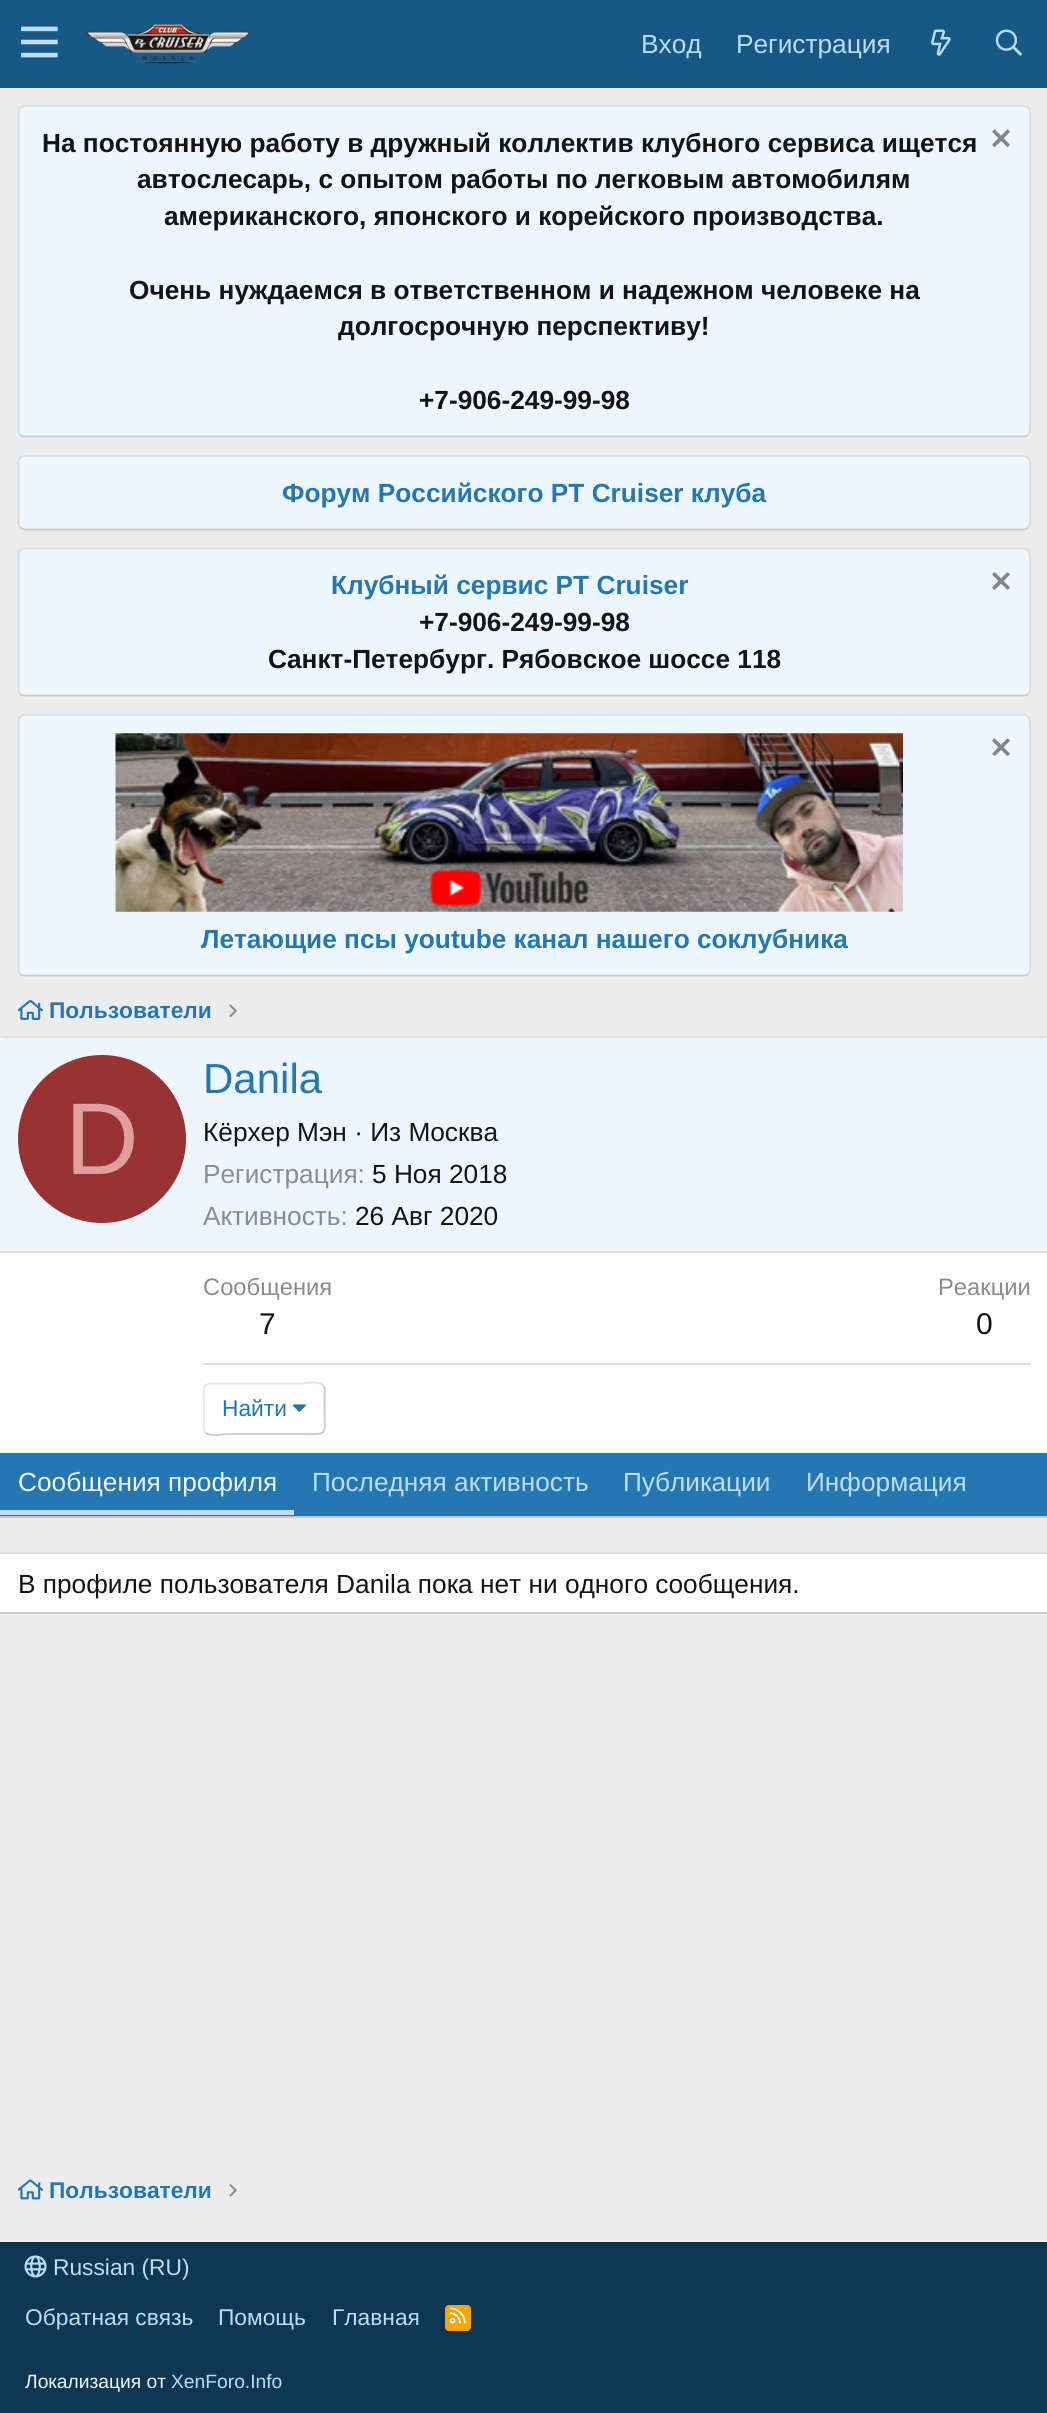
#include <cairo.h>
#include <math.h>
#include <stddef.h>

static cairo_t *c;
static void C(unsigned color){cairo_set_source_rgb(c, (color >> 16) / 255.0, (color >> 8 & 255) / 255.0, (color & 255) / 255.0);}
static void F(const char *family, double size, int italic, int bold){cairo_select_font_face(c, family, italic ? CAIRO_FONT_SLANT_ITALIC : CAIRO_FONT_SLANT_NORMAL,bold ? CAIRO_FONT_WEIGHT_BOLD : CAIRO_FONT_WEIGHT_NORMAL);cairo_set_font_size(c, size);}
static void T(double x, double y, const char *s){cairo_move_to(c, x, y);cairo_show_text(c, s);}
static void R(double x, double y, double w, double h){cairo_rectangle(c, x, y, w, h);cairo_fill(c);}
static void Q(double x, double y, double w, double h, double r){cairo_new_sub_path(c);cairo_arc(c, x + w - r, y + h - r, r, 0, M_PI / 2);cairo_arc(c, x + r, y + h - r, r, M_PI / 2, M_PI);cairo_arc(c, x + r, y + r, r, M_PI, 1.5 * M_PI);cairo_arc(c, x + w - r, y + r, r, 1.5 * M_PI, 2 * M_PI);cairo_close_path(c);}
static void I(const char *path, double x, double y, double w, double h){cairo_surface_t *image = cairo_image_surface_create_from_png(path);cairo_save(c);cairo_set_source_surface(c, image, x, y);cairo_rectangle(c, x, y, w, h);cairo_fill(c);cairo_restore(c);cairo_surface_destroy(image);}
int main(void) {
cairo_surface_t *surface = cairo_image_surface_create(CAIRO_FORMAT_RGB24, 1047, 2413);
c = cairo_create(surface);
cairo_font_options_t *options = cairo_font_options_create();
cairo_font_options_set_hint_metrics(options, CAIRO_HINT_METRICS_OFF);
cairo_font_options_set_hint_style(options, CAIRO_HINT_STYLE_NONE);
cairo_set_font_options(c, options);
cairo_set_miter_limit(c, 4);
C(0xececec);
cairo_paint(c);
C(0x185886);
R(0,0,1047,88);
I("1.png",21,26,37,32);
I("2.png",86,24,165,40);
F("Liberation Sans",26.25,0,0);
C(0xbcdef5);
T(641,53,"Вход");
T(736,53,"Регистрация");
I("3.png",931,29,20,27);
I("4.png",995,29,27,27);
C(0xedf6fd);
Q(18,105,1013,333,7);
cairo_fill(c);
cairo_new_path(c);
cairo_move_to(c,20,107.5);
cairo_curve_to(c,21.5,106.5,23,106,24.5,106);
cairo_line_to(c,1024,106);
cairo_curve_to(c,1025.5,106,1027,106.5,1028,107.5);
C(0xdfdfdf);
cairo_set_line_width(c,1.8);
cairo_stroke(c);
cairo_new_path(c);
cairo_move_to(c,1028,107.5);
cairo_curve_to(c,1029,109,1030,110.5,1030,112);
cairo_line_to(c,1030,430.5);
cairo_curve_to(c,1030,432,1029,433.5,1028,435);
C(0xd8d8d8);
cairo_stroke(c);
cairo_new_path(c);
cairo_move_to(c,1028,435);
cairo_curve_to(c,1027,436,1025.5,436.5,1024,436.5);
cairo_line_to(c,24.5,436.5);
cairo_curve_to(c,23,436.5,21.5,436,20,435);
C(0xcbcbcb);
cairo_stroke(c);
cairo_new_path(c);
cairo_move_to(c,20,435);
cairo_curve_to(c,19,433.5,18.5,432,18.5,430.5);
cairo_line_to(c,18.5,112);
cairo_curve_to(c,18.5,110.5,19,109,20,107.5);
C(0xd8d8d8);
cairo_stroke(c);
F("Liberation Sans",26.25,0,1);
C(0x141414);
T(42,152,"На постоянную работу в дружный коллектив клубного сервиса ищется");
T(137,188,"автослесарь, с опытом работы по легковым автомобилям");
T(164,225,"американского, японского и корейского производства.");
T(129,299,"Очень нуждаемся в ответственном и надежном человеке на");
T(338,335,"долгосрочную перспективу!");
T(419,409,"+7-906-249-99-98");
I("5.png",992,129,18,18);
C(0xedf6fd);
Q(18,455,1013,75,7);
cairo_fill(c);
cairo_new_path(c);
cairo_move_to(c,20,457.5);
cairo_curve_to(c,21.5,456.5,23,456,24.5,456);
cairo_line_to(c,1024,456);
cairo_curve_to(c,1025.5,456,1027,456.5,1028,457.5);
C(0xdfdfdf);
cairo_stroke(c);
cairo_new_path(c);
cairo_move_to(c,1028,457.5);
cairo_curve_to(c,1029,459,1030,460.5,1030,462);
cairo_line_to(c,1030,523);
cairo_curve_to(c,1030,525,1029,526.5,1028,527.5);
C(0xd8d8d8);
cairo_stroke(c);
cairo_new_path(c);
cairo_move_to(c,1028,527.5);
cairo_curve_to(c,1027,528.5,1025.5,529.5,1024,529.5);
cairo_line_to(c,24.5,529.5);
cairo_curve_to(c,23,529.5,21.5,528.5,20,527.5);
C(0xcbcbcb);
cairo_stroke(c);
cairo_new_path(c);
cairo_move_to(c,20,527.5);
cairo_curve_to(c,19,526.5,18.5,525,18.5,523);
cairo_line_to(c,18.5,462);
cairo_curve_to(c,18.5,460.5,19,459,20,457.5);
C(0xd8d8d8);
cairo_stroke(c);
C(0x2577b1);
T(282,502,"Форум Российского PT Cruiser клуба");
C(0xedf6fd);
Q(18,548,1013,149,7);
cairo_fill(c);
cairo_new_path(c);
cairo_move_to(c,20,550.5);
cairo_curve_to(c,21.5,549.5,23,548.5,24.5,548.5);
cairo_line_to(c,1024,548.5);
cairo_curve_to(c,1025.5,548.5,1027,549.5,1028,550.5);
C(0xdfdfdf);
cairo_stroke(c);
cairo_new_path(c);
cairo_move_to(c,1028,550.5);
cairo_curve_to(c,1029,551.5,1030,553,1030,555);
cairo_line_to(c,1030,689.5);
cairo_curve_to(c,1030,691,1029,692.5,1028,694);
C(0xd8d8d8);
cairo_stroke(c);
cairo_new_path(c);
cairo_move_to(c,1028,694);
cairo_curve_to(c,1027,695,1025.5,695.5,1024,695.5);
cairo_line_to(c,24.5,695.5);
cairo_curve_to(c,23,695.5,21.5,695,20,694);
C(0xcbcbcb);
cairo_stroke(c);
cairo_new_path(c);
cairo_move_to(c,20,694);
cairo_curve_to(c,19,692.5,18.5,691,18.5,689.5);
cairo_line_to(c,18.5,555);
cairo_curve_to(c,18.5,553,19,551.5,20,550.5);
C(0xd8d8d8);
cairo_stroke(c);
C(0x2577b1);
T(331,594,"Клубный сервис PT Cruiser");
C(0x141414);
T(419,631,"+7-906-249-99-98");
T(268,668,"Санкт-Петербург. Рябовское шоссе 118");
I("6.png",992,572,18,18);
C(0xedf6fd);
Q(18,714,1013,263,7);
cairo_fill(c);
cairo_new_path(c);
cairo_move_to(c,20,716.5);
cairo_curve_to(c,21.5,715.5,23,715,24.5,715);
cairo_line_to(c,1024,715);
cairo_curve_to(c,1025.5,715,1027,715.5,1028,716.5);
C(0xdfdfdf);
cairo_stroke(c);
cairo_new_path(c);
cairo_move_to(c,1028,716.5);
cairo_curve_to(c,1029,718,1030,719.5,1030,721);
cairo_line_to(c,1030,969.5);
cairo_curve_to(c,1030,971,1029,972.5,1028,974);
C(0xd8d8d8);
cairo_stroke(c);
cairo_new_path(c);
cairo_move_to(c,1028,974);
cairo_curve_to(c,1027,975,1025.5,975.5,1024,975.5);
cairo_line_to(c,24.5,975.5);
cairo_curve_to(c,23,975.5,21.5,975,20,974);
C(0xcbcbcb);
cairo_stroke(c);
cairo_new_path(c);
cairo_move_to(c,20,974);
cairo_curve_to(c,19,972.5,18.5,971,18.5,969.5);
cairo_line_to(c,18.5,721);
cairo_curve_to(c,18.5,719.5,19,718,20,716.5);
C(0xd8d8d8);
cairo_stroke(c);
I("5.png",992,738,18,18);
I("7.png",115,733,788,179);
C(0x2577b1);
T(201,948,"Летающие псы youtube канал нашего соклубника");
I("8.png",18,1000,25,20);
F("Liberation Sans",22.75,0,1);
T(49,1018,"Пользователи");
I("9.png",229,1004,8,14);
C(0xfefefe);
R(0,1038,1047,415);
C(0xdfdfdf);
R(0,1036,1047,2);
C(0xcbcbcb);
R(0,1516,1047,2);
C(0xedf6fd);
cairo_new_path(c);
cairo_move_to(c,5,1038);
cairo_line_to(c,1043,1038);
cairo_curve_to(c,1046,1038,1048,1040,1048,1043);
cairo_line_to(c,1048,1253);
cairo_line_to(c,0,1253);
cairo_line_to(c,0,1043);
cairo_curve_to(c,0,1040,2,1038,5,1038);
cairo_close_path(c);
cairo_fill(c);
C(0xdfdfdf);
R(0,1251,1047,2);
C(0x993333);
cairo_arc(c,102,1139,84,0,2 * M_PI);
cairo_fill(c);
F("Liberation Sans",102,0,0);
C(0xdf9f9f);
T(65,1174,"D");
F("Liberation Sans",42,0,0);
C(0x2577b1);
T(203,1093,"Danila");
F("Liberation Sans",26.25,0,0);
C(0x141414);
T(203,1141,"Кёрхер Мэн · Из Москва");
C(0x8c8c8c);
T(203,1183,"Регистрация:");
C(0x141414);
T(372,1183,"5 Ноя 2018");
C(0x8c8c8c);
T(203,1225,"Активность:");
C(0x141414);
T(355,1225,"26 Авг 2020");
F("Liberation Sans",23.75,0,0);
C(0x8c8c8c);
T(203,1295,"Сообщения");
F("Liberation Sans",30,0,0);
C(0x141414);
T(259,1334,"7");
F("Liberation Sans",23.75,0,0);
C(0x8c8c8c);
T(938,1295,"Реакции");
F("Liberation Sans",30,0,0);
C(0x141414);
T(976,1334,"0");
C(0xdfdfdf);
R(203,1363,828,2);
cairo_new_path(c);
cairo_move_to(c,323,1385);
cairo_curve_to(c,325.5,1388,324.5,1392.5,324.5,1396);
cairo_line_to(c,324.5,1409);
cairo_curve_to(c,324.5,1437,329,1434,300.5,1434);
cairo_line_to(c,228,1434);
cairo_curve_to(c,226,1434,210,1437,205.5,1432.5);
C(0xcbcbcb);
cairo_stroke(c);
cairo_new_path(c);
cairo_move_to(c,205.5,1432.5);
cairo_curve_to(c,203,1429.5,204,1425,204,1421.5);
cairo_line_to(c,204,1409);
cairo_curve_to(c,204,1380.5,199.5,1383.5,228,1383.5);
cairo_line_to(c,300.5,1383.5);
cairo_curve_to(c,302.5,1383.5,318.5,1380.5,323,1385);
C(0xe5e5e5);
cairo_stroke(c);
F("Liberation Sans",22.75,0,0);
C(0x2577b1);
T(222,1416,"Найти");
I("10.png",292,1404,14,8);
R(0,1453,1047,63);
C(0xbcdef5);
R(0,1510,294,5);
F("Liberation Sans",26.25,0,0);
C(0xedf6fd);
T(18,1491,"Сообщения профиля");
C(0xbcdef5);
T(312,1491,"Последняя активность");
T(623,1491,"Публикации");
T(806,1491,"Информация");
C(0xfefefe);
R(0,1554,1047,58);
C(0xdfdfdf);
R(0,1552,1047,2);
C(0xcbcbcb);
R(0,1612,1047,2);
C(0x141414);
T(18,1593,"В профиле пользователя Danila пока нет ни одного сообщения.");
I("11.png",18,2179,25,21);
F("Liberation Sans",22.75,0,1);
C(0x2577b1);
T(49,2198,"Пользователи");
I("12.png",229,2184,8,13);
C(0x0f3652);
R(0,2242,1047,171);
I("13.png",24,2255,23,23);
F("Liberation Sans",22.75,0,0);
C(0xbcdef5);
T(53,2275,"Russian (RU)");
T(25,2325,"Обратная связь");
T(218,2325,"Помощь");
T(332,2325,"Главная");
C(0xffa500);
Q(445,2305,26,26,4);
cairo_fill(c);
I("14.png",449,2307,17,17);
F("Liberation Sans",19.25,0,0);
C(0xedf6fd);
T(25,2388,"Локализация от");
C(0xbcdef5);
T(171,2388,"XenForo.Info");
cairo_surface_write_to_png(surface, "o.png");
cairo_font_options_destroy(options);
cairo_destroy(c);
cairo_surface_destroy(surface);
return 0;
}
